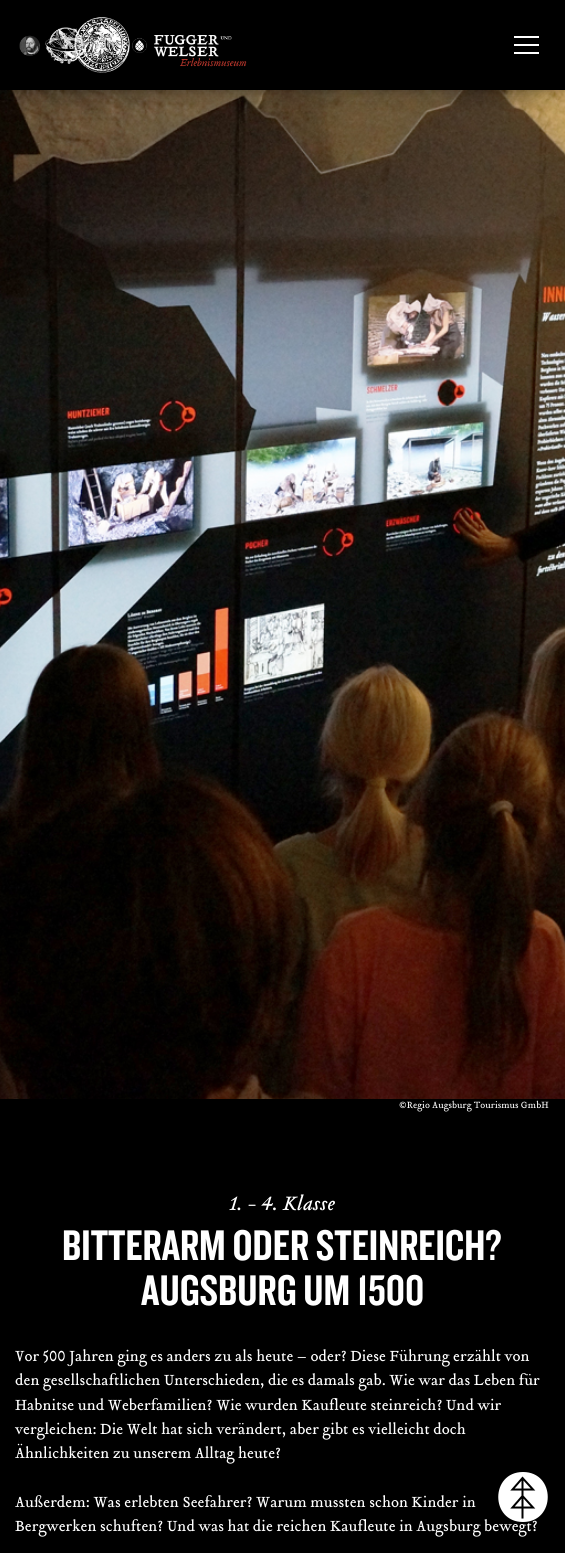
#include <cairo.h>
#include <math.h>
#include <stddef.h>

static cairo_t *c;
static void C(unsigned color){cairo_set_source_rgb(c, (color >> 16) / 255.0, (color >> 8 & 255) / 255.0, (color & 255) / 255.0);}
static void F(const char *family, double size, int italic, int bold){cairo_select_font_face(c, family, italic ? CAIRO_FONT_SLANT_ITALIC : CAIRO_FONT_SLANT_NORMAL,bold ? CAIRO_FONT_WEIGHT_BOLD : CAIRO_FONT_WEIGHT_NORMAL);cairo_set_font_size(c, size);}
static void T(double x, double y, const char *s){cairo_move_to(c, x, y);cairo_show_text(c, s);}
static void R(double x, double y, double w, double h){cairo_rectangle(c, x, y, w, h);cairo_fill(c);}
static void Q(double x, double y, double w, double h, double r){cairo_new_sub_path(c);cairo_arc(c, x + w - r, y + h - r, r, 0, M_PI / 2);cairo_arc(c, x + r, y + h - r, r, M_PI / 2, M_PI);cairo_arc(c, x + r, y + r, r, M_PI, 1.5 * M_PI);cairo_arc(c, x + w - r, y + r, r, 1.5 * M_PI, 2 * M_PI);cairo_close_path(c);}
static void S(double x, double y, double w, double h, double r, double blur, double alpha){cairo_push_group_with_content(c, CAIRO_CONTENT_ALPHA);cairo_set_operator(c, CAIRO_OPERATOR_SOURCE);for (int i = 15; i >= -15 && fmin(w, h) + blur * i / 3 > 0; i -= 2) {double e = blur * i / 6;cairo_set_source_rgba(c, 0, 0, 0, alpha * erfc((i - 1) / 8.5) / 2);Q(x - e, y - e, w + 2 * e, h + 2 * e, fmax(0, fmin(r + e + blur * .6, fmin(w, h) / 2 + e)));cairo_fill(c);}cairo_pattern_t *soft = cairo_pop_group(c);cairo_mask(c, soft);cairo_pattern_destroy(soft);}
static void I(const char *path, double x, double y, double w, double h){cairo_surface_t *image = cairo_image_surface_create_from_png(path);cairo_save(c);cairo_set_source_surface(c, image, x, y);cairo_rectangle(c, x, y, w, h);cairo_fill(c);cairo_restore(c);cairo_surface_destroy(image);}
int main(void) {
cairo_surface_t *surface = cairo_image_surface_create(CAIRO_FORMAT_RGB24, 565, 1553);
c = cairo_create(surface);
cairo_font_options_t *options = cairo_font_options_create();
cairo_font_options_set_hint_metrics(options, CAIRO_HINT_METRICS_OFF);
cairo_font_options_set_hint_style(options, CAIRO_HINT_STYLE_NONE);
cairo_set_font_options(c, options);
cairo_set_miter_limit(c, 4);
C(0x000000);
cairo_paint(c);
I("2.png",0,90,565,1009);
S(0,1,565,90,0,5,.1);
S(1,3,563,88,0,2,.1);
S(10,11,545,90,30,7.5,.2);
I("1.png",19,17,228,56);
C(0xffffff);
R(514,44,25,2);
R(514,36,25,2);
R(514,52,25,2);
F("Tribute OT",10,0,0);
T(399,1108,"©Regio Augsburg Tourismus GmbH");
F("Tribute OT",21.5,1,0);
T(229,1210,"1. - 4. Klasse");
F("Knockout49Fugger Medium",44.5,0,0);
T(62,1260,"BITTERARM ODER STEINREICH?");
T(141,1305,"AUGSBURG UM 1500");
F("Tribute OT",16.25,0,0);
T(15,1361,"Vor 500 Jahren ging es anders zu als heute – oder? Diese Führung erzählt von");
T(15,1385,"den gesellschaftlichen Unterschieden, die es damals gab. Wie war das Leben für");
T(15,1410,"Habnitse und Weberfamilien? Wie wurden Kaufleute steinreich? Und wir");
T(15,1434,"vergleichen: Die Welt hat sich verändert, aber gibt es vielleicht doch");
T(15,1458,"Ähnlichkeiten zu unserem Alltag heute?");
T(15,1507,"Außerdem: Was erlebten Seefahrer? Warum mussten schon Kinder in");
T(15,1531,"Bergwerken schuften? Und was hat die reichen Kaufleute in Augsburg bewegt?");
cairo_new_path(c);
cairo_move_to(c,523,1472);
cairo_curve_to(c,556,1472,556,1522,523,1522);
cairo_curve_to(c,490,1522,490,1472,523,1472);
cairo_close_path(c);
cairo_fill(c);
cairo_new_path(c);
cairo_move_to(c,522.5,1504.5);
cairo_line_to(c,522.5,1478);
cairo_move_to(c,522.5,1478);
cairo_line_to(c,512.5,1489.5);
cairo_line_to(c,533,1489.5);
cairo_close_path(c);
cairo_move_to(c,522.5,1518.5);
cairo_line_to(c,522.5,1496);
cairo_move_to(c,522.5,1496);
cairo_line_to(c,512.5,1507.5);
cairo_line_to(c,533,1507.5);
cairo_close_path(c);
C(0x000000);
cairo_stroke(c);
cairo_surface_write_to_png(surface, "o.png");
cairo_font_options_destroy(options);
cairo_destroy(c);
cairo_surface_destroy(surface);
return 0;
}
